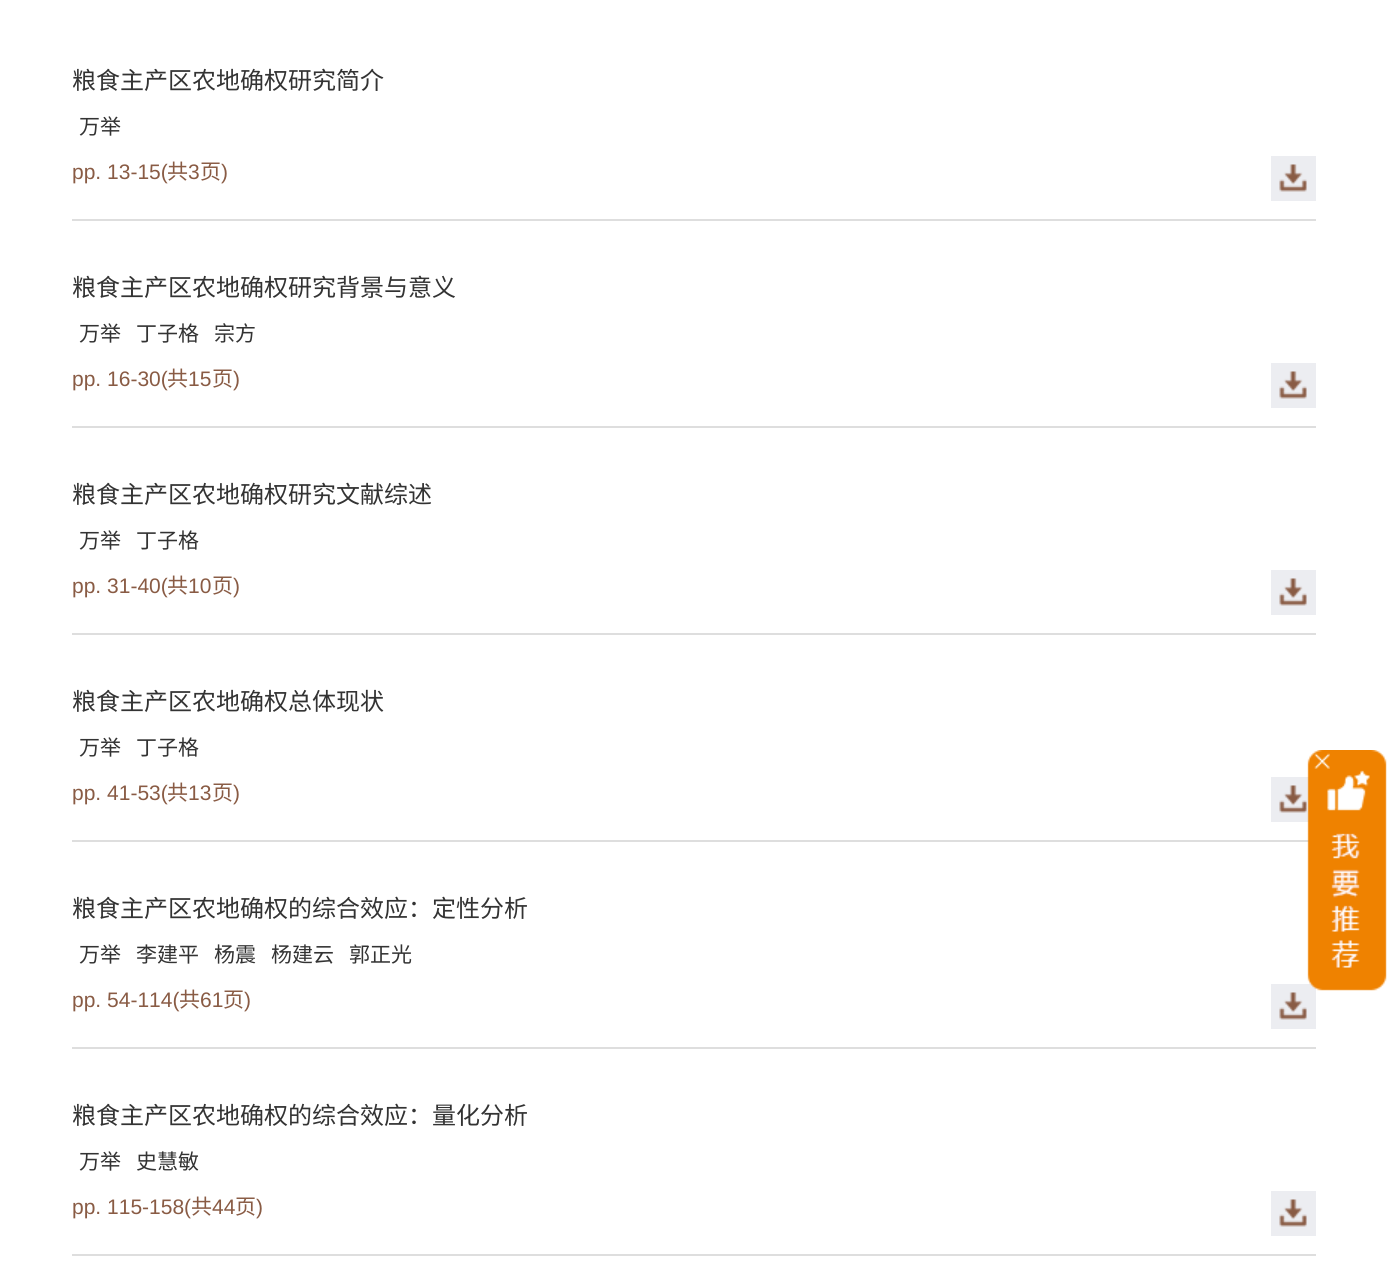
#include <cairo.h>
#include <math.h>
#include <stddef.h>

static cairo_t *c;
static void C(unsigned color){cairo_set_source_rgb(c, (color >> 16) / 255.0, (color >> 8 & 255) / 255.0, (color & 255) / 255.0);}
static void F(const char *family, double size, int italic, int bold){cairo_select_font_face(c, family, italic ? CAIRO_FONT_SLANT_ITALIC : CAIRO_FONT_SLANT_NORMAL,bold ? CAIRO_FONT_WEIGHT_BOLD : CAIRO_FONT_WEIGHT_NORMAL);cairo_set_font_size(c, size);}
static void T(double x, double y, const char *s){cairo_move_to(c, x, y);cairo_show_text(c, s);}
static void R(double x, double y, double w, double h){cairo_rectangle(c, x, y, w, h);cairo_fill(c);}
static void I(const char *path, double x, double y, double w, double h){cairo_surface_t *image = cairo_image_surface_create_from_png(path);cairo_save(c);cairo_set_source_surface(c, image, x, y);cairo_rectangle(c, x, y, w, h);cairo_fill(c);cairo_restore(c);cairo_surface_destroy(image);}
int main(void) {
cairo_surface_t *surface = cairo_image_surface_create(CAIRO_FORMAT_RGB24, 1387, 1285);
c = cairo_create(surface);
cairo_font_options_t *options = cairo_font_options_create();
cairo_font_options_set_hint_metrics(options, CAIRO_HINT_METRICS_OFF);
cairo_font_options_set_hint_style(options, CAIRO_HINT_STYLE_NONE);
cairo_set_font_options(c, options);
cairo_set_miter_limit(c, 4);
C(0xffffff);
cairo_paint(c);
C(0xdedede);
R(72,219,1244,2);
F("Noto Sans CJK SC",24,0,0);
C(0x333333);
T(72,89,"粮食主产区农地确权研究简介");
F("Noto Sans CJK SC",21,0,0);
T(79,134,"万举");
F("Liberation Sans",21,0,0);
C(0x895b44);
T(72,179,"pp. 13-15(");
F("Noto Sans CJK SC",21,0,0);
T(167,179,"共");
F("Liberation Sans",21,0,0);
T(188,179,"3");
F("Noto Sans CJK SC",21,0,0);
T(200,179,"页");
F("Liberation Sans",21,0,0);
T(221,179,")");
C(0xecedf1);
R(1271,156,45,45);
I("1.png",1279,164,28,28);
C(0xdedede);
R(72,426,1244,2);
F("Noto Sans CJK SC",24,0,0);
C(0x333333);
T(72,296,"粮食主产区农地确权研究背景与意义");
F("Noto Sans CJK SC",21,0,0);
T(79,341,"万举");
T(136,341,"丁子格");
T(214,341,"宗方");
F("Liberation Sans",21,0,0);
C(0x895b44);
T(72,386,"pp. 16-30(");
F("Noto Sans CJK SC",21,0,0);
T(167,386,"共");
F("Liberation Sans",21,0,0);
T(188,386,"15");
F("Noto Sans CJK SC",21,0,0);
T(212,386,"页");
F("Liberation Sans",21,0,0);
T(233,386,")");
C(0xecedf1);
R(1271,363,45,45);
I("1.png",1279,371,28,28);
C(0xdedede);
R(72,633,1244,2);
F("Noto Sans CJK SC",24,0,0);
C(0x333333);
T(72,503,"粮食主产区农地确权研究文献综述");
F("Noto Sans CJK SC",21,0,0);
T(79,548,"万举");
T(136,548,"丁子格");
F("Liberation Sans",21,0,0);
C(0x895b44);
T(72,593,"pp. 31-40(");
F("Noto Sans CJK SC",21,0,0);
T(167,593,"共");
F("Liberation Sans",21,0,0);
T(188,593,"10");
F("Noto Sans CJK SC",21,0,0);
T(212,593,"页");
F("Liberation Sans",21,0,0);
T(233,593,")");
C(0xecedf1);
R(1271,570,45,45);
I("1.png",1279,578,28,28);
C(0xdedede);
R(72,840,1244,2);
F("Noto Sans CJK SC",24,0,0);
C(0x333333);
T(72,710,"粮食主产区农地确权总体现状");
F("Noto Sans CJK SC",21,0,0);
T(79,755,"万举");
T(136,755,"丁子格");
F("Liberation Sans",21,0,0);
C(0x895b44);
T(72,800,"pp. 41-53(");
F("Noto Sans CJK SC",21,0,0);
T(167,800,"共");
F("Liberation Sans",21,0,0);
T(188,800,"13");
F("Noto Sans CJK SC",21,0,0);
T(212,800,"页");
F("Liberation Sans",21,0,0);
T(233,800,")");
C(0xecedf1);
R(1271,777,38,45);
I("1.png",1279,785,28,28);
C(0xdedede);
R(72,1047,1244,2);
F("Noto Sans CJK SC",24,0,0);
C(0x333333);
T(72,917,"粮食主产区农地确权的综合效应：定性分析");
F("Noto Sans CJK SC",21,0,0);
T(79,962,"万举");
T(136,962,"李建平");
T(214,962,"杨震");
T(271,962,"杨建云");
T(349,962,"郭正光");
F("Liberation Sans",21,0,0);
C(0x895b44);
T(72,1007,"pp. 54-114(");
F("Noto Sans CJK SC",21,0,0);
T(179,1007,"共");
F("Liberation Sans",21,0,0);
T(200,1007,"61");
F("Noto Sans CJK SC",21,0,0);
T(223,1007,"页");
F("Liberation Sans",21,0,0);
T(244,1007,")");
C(0xecedf1);
R(1271,984,45,45);
I("1.png",1279,992,28,28);
C(0xdedede);
R(72,1254,1244,2);
F("Noto Sans CJK SC",24,0,0);
C(0x333333);
T(72,1124,"粮食主产区农地确权的综合效应：量化分析");
F("Noto Sans CJK SC",21,0,0);
T(79,1169,"万举");
T(136,1169,"史慧敏");
F("Liberation Sans",21,0,0);
C(0x895b44);
T(72,1214,"pp. 115-158(");
F("Noto Sans CJK SC",21,0,0);
T(191,1214,"共");
F("Liberation Sans",21,0,0);
T(212,1214,"44");
F("Noto Sans CJK SC",21,0,0);
T(235,1214,"页");
F("Liberation Sans",21,0,0);
T(256,1214,")");
C(0xecedf1);
R(1271,1191,45,45);
I("1.png",1279,1199,28,28);
I("2.png",1307,750,80,241);
I("3.png",1314,753,16,16);
cairo_surface_write_to_png(surface, "o.png");
cairo_font_options_destroy(options);
cairo_destroy(c);
cairo_surface_destroy(surface);
return 0;
}
